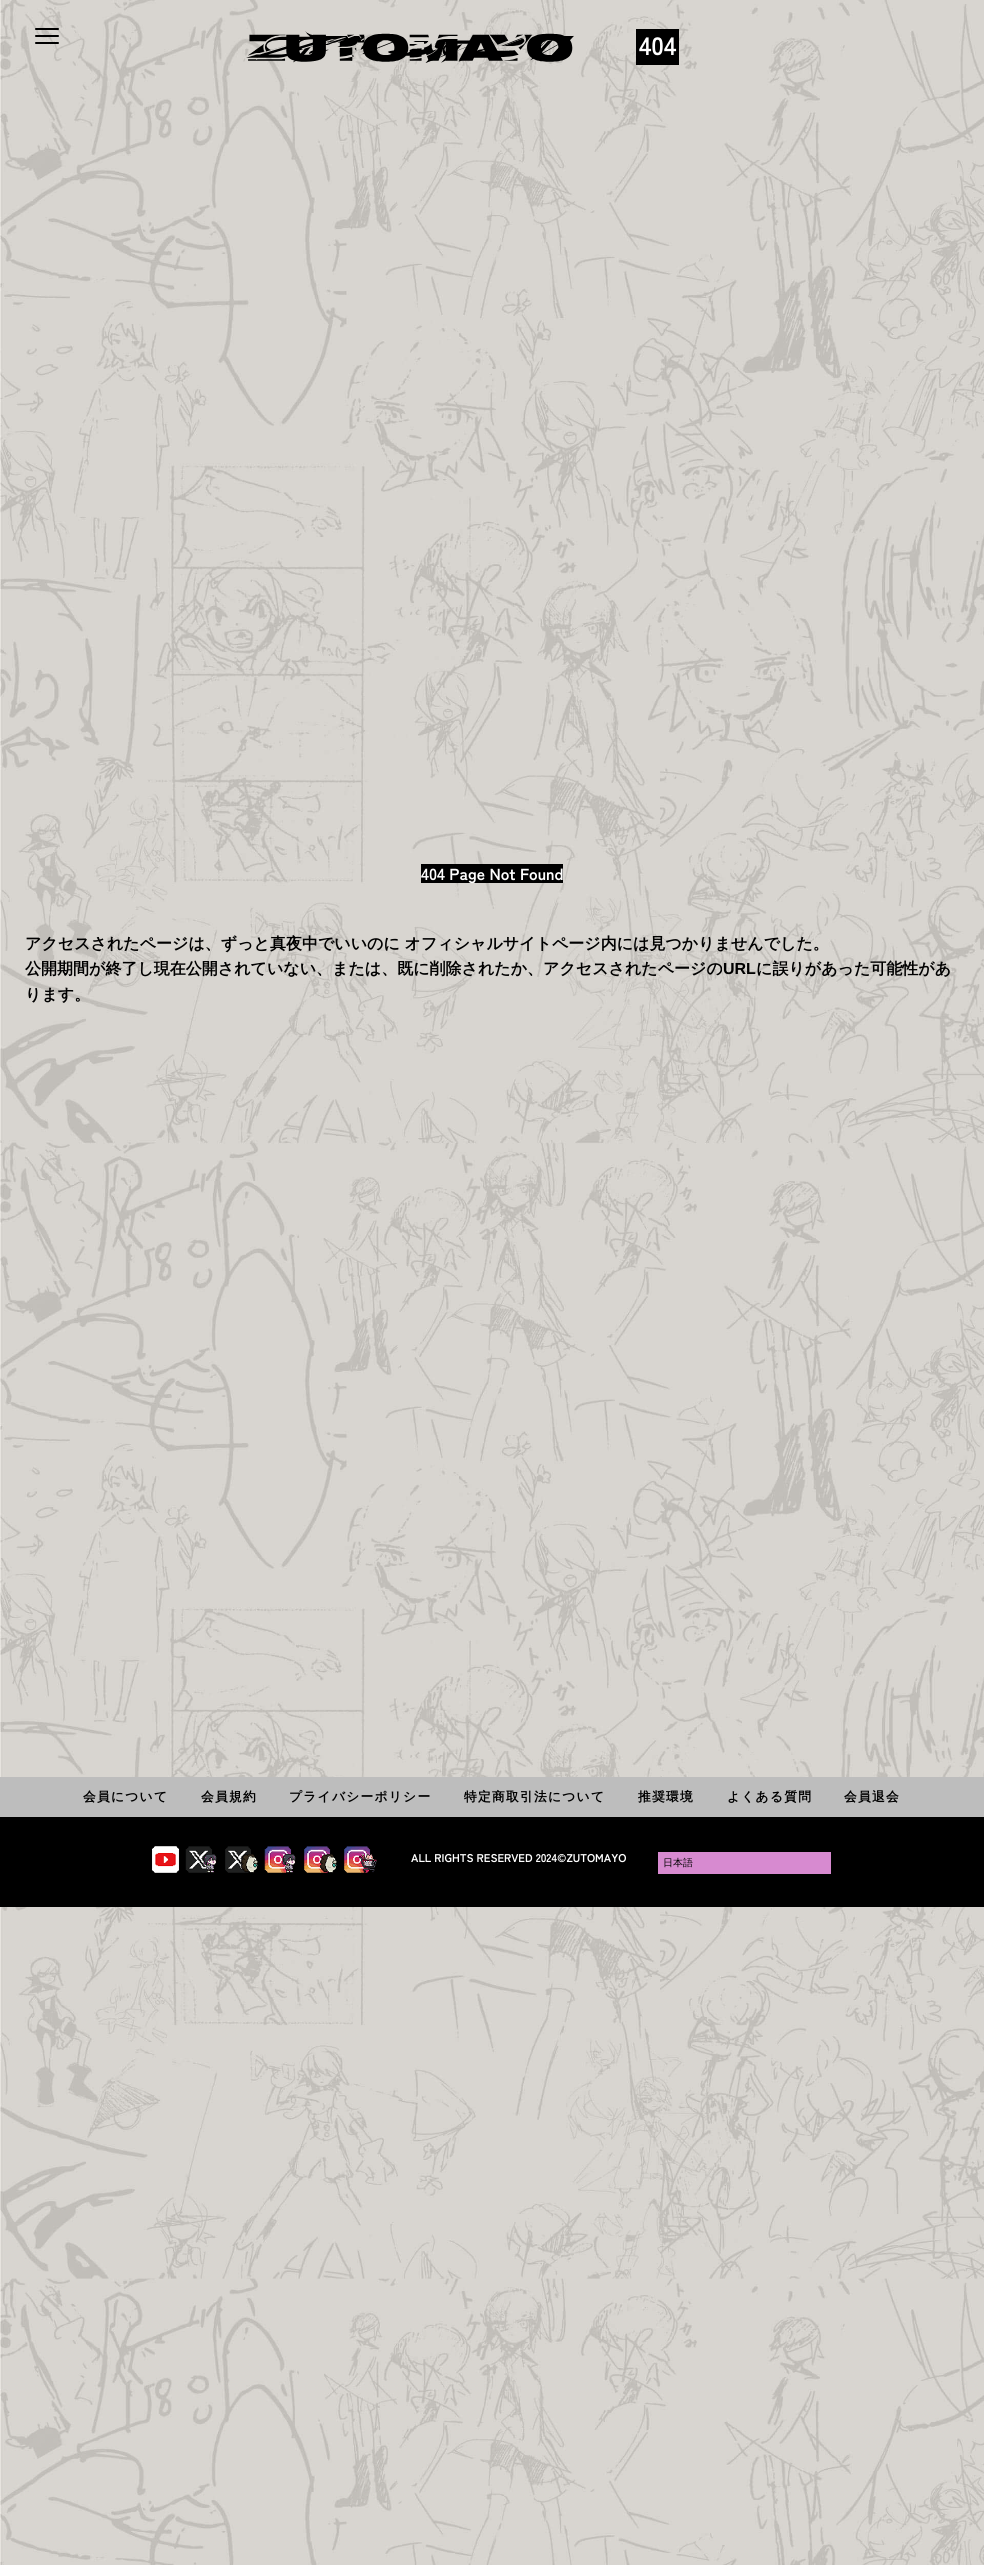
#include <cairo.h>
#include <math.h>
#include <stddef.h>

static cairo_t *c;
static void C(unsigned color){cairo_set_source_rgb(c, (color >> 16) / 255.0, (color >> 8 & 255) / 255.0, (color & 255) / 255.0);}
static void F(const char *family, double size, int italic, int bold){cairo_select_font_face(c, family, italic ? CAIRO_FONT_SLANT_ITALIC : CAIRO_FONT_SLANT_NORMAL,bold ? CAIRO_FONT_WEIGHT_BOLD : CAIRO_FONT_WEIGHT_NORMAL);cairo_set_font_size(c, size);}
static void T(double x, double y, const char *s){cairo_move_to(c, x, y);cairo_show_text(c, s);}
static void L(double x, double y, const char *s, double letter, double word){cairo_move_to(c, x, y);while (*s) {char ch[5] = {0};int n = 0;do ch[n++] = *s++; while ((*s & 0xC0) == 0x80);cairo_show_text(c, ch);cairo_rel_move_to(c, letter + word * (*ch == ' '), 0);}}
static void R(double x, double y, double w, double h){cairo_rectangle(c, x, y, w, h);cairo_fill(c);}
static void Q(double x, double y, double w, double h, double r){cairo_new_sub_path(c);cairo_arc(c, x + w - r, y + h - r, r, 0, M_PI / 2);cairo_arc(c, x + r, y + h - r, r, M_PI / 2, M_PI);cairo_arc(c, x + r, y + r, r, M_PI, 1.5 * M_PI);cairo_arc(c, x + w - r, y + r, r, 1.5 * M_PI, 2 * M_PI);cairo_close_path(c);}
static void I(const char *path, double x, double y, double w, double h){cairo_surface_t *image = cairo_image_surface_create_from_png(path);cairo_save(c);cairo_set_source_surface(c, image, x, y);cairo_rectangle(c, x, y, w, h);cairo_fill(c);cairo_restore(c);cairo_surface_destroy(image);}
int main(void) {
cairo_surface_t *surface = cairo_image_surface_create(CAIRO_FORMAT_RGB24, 984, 2565);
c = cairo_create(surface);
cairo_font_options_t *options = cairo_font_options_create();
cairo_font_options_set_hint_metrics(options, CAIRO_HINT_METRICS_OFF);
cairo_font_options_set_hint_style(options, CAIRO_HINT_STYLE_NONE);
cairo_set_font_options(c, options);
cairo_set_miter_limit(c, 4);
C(0xffffff);
cairo_paint(c);
I("1.png",0,0,984,2565);
C(0x000000);
Q(35,28,24,2,1);
cairo_fill(c);
Q(35,35,24,2,1);
cairo_fill(c);
Q(35,42,24,2,1);
cairo_fill(c);
I("2.png",246,31,328,32);
R(636,29,43,36);
F("Zen Kaku Gothic New",25,0,1);
C(0xffffff);
T(639,55,"404");
C(0x000000);
R(421,864,142,19);
F("Zen Kaku Gothic New",16,0,1);
C(0xffffff);
T(421,880,"404 Page Not Found");
F("WenQuanYi Zen Hei",16,0,1);
C(0x000000);
T(25,949,"アクセスされたページは、ずっと真夜中でいいのに オフィシャルサイトページ内には見つかりませんでした。");
T(25,974,"公開期間が終了し現在公開されていない、または、既に削除されたか、アクセスされたページの");
F("Liberation Sans",16,0,1);
T(723,974,"URL");
F("WenQuanYi Zen Hei",16,0,1);
T(756,974,"に誤りがあった可能性があ");
T(25,1000,"ります。");
C(0xbdbdbd);
R(0,1777,984,40);
F("WenQuanYi Zen Hei",12.75,0,1);
C(0x000000);
L(83,1801,"会員について",1.25,0);
L(201,1801,"会員規約",1.25,0);
L(289,1801,"プライバシーポリシー",1.25,0);
L(464,1801,"特定商取引法について",1.25,0);
L(638,1801,"推奨環境",1.25,0);
L(727,1801,"よくある質問",1.25,0);
L(844,1801,"会員退会",1.25,0);
R(0,1817,984,90);
I("3.png",152,1846,27,27);
I("4.png",185,1846,32,27);
I("5.png",225,1846,33,27);
I("6.png",264,1846,32,27);
I("7.png",304,1846,33,27);
I("8.png",344,1846,33,27);
F("Zen Kaku Gothic New",11.25,0,1);
C(0xffffff);
T(411,1862,"ALL RIGHTS RESERVED 2024©ZUTOMAYO");
C(0xd78ad0);
R(658,1852,173,22);
F("WenQuanYi Zen Hei Medium",10,0,0);
C(0x000000);
T(663,1866,"日本語");
cairo_surface_write_to_png(surface, "o.png");
cairo_font_options_destroy(options);
cairo_destroy(c);
cairo_surface_destroy(surface);
return 0;
}
